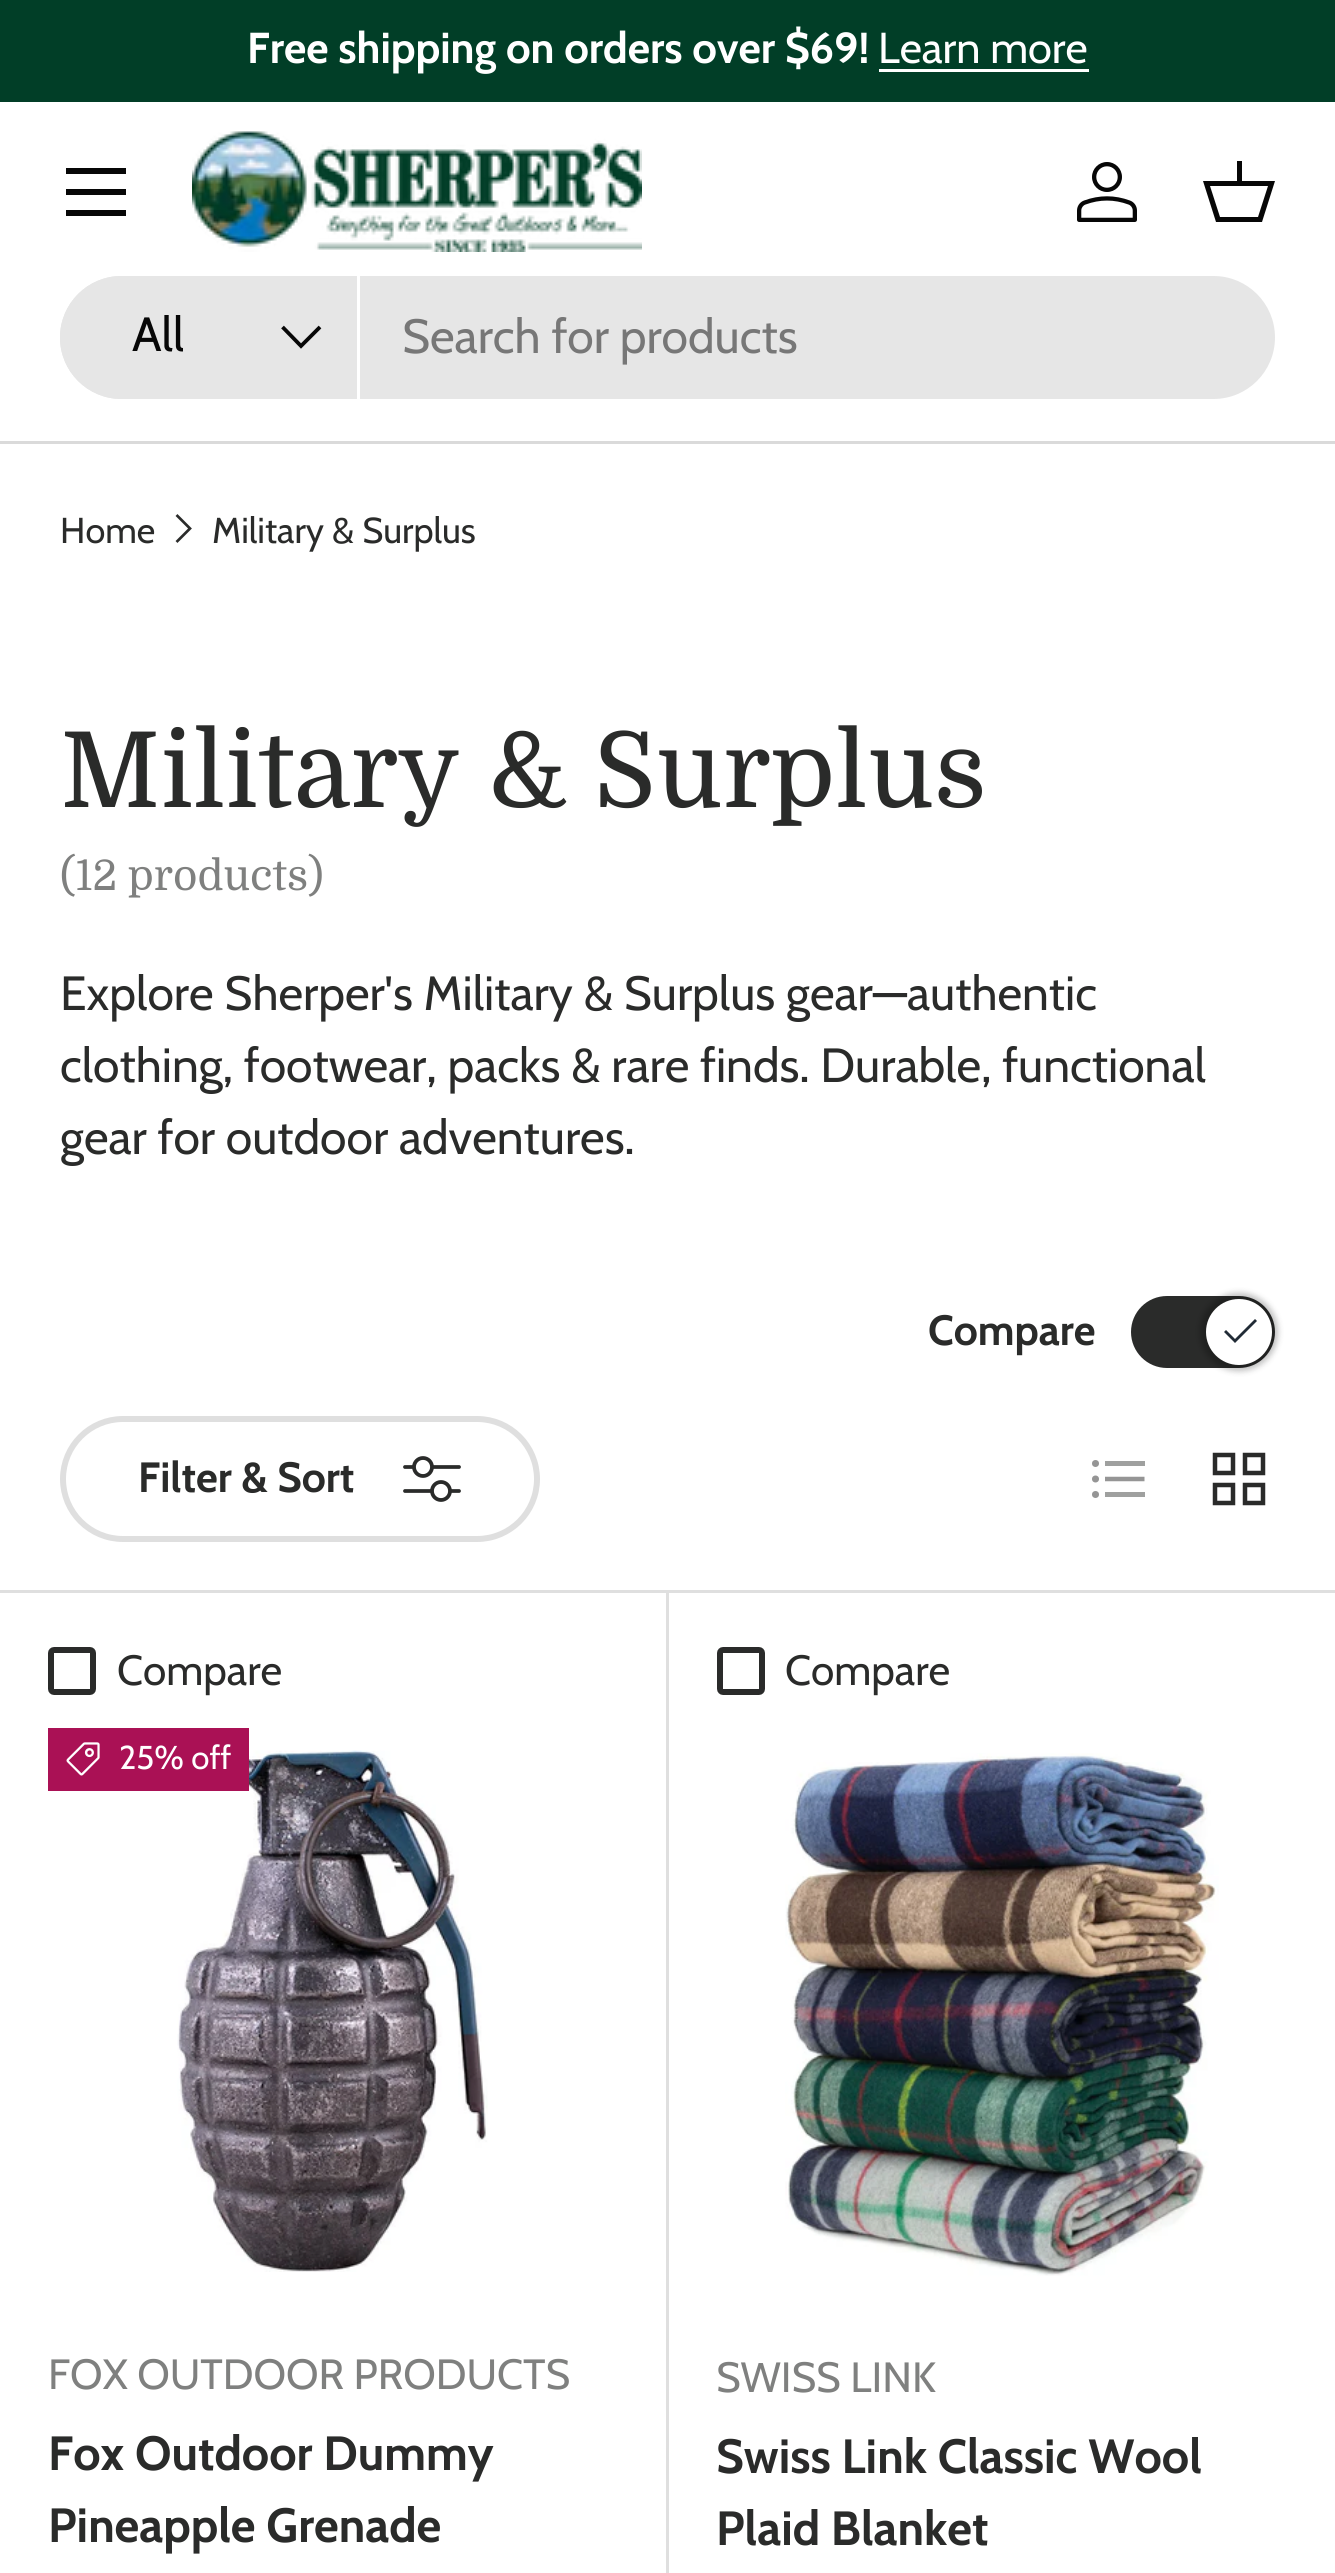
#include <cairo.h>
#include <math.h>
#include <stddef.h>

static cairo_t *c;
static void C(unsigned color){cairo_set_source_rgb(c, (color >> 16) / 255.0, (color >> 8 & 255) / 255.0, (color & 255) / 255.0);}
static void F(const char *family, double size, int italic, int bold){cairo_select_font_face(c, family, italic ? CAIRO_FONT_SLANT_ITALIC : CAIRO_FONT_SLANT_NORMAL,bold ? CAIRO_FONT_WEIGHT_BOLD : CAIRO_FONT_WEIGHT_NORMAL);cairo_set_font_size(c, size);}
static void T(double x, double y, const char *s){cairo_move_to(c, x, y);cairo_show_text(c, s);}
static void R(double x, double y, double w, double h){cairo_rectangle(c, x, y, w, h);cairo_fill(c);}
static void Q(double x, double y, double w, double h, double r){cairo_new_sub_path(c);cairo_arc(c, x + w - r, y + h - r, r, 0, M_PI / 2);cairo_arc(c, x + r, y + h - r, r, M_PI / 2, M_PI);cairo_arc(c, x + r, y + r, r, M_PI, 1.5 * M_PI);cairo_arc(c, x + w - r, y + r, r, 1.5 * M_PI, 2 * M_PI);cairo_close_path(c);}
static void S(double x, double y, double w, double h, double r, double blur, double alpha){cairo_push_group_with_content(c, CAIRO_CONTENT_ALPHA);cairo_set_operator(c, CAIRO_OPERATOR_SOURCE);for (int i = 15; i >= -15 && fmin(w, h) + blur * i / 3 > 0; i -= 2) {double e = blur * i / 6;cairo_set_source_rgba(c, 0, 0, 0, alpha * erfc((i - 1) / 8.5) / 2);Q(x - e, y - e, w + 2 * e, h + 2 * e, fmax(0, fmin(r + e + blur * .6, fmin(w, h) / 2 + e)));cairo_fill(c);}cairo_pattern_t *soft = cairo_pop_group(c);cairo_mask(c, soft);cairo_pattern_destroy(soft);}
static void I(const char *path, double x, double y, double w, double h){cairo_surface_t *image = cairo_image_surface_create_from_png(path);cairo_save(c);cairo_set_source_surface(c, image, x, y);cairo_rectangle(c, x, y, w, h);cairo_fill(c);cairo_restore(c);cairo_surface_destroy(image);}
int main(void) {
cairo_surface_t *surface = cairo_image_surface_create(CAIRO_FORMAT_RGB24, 1335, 2573);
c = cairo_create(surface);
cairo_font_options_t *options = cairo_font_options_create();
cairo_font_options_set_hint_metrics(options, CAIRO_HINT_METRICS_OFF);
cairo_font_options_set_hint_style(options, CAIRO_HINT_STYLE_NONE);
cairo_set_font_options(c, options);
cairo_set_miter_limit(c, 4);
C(0xffffff);
cairo_paint(c);
C(0x013e27);
R(0,0,1335,102);
F("Cabin",43.25,0,1);
C(0xffffff);
T(247,63,"Free shipping on orders over $69!");
F("Cabin",43.25,0,0);
T(878,63,"Learn more");
R(879,69,210,3);
C(0xdadada);
R(0,441,1335,3);
C(0x070707);
R(66,168,60,6);
R(66,210,60,6);
R(66,189,60,6);
I("1.png",192,131,450,121);
I("2.png",1077,162,60,60);
cairo_new_path(c);
cairo_move_to(c,1237,181);
cairo_line_to(c,1237,161);
cairo_line_to(c,1242,161);
cairo_line_to(c,1242,181);
cairo_line_to(c,1275,181);
cairo_line_to(c,1262,222);
cairo_line_to(c,1216,222);
cairo_line_to(c,1203,181);
cairo_close_path(c);
cairo_move_to(c,1210,186);
cairo_line_to(c,1220,217);
cairo_line_to(c,1258,217);
cairo_line_to(c,1268,186);
cairo_close_path(c);
cairo_fill(c);
C(0xe6e6e6);
Q(60,276,1215,123,61.5);
cairo_fill(c);
cairo_new_path(c);
cairo_move_to(c,121.5,276);
cairo_line_to(c,360,276);
cairo_line_to(c,360,399);
cairo_line_to(c,121.5,399);
cairo_curve_to(c,87.5,399,60,371.5,60,337.5);
cairo_curve_to(c,60,303.5,87.5,276,121.5,276);
cairo_close_path(c);
cairo_fill(c);
C(0xffffff);
R(357,276,3,123);
cairo_save(c);
cairo_rectangle(c,132,300,51,72);
cairo_clip(c);
F("Cabin",48,0,0);
C(0x070707);
T(132,351,"All");
cairo_restore(c);
cairo_new_path(c);
cairo_move_to(c,320,327);
cairo_line_to(c,301,346);
cairo_line_to(c,282.5,327);
C(0x070707);
cairo_set_line_width(c,3.8);
cairo_stroke(c);
F("Cabin",48,0,0);
C(0x777777);
T(402,353,"Search for products");
F("Cabin",36,0,0);
C(0x2a2b2a);
T(60,543,"Home");
cairo_new_path(c);
cairo_move_to(c,176.5,515);
cairo_line_to(c,190,528.5);
cairo_line_to(c,176.5,542);
cairo_set_line_width(c,2.7);
cairo_stroke(c);
T(212,543,"Military & Surplus");
F("Domine",104.75,0,0);
T(60,807,"Military & Surplus");
F("Domine",42,0,0);
C(0x7f807f);
T(60,890,"(12 products)");
F("Cabin",48,0,0);
C(0x2a2b2a);
T(60,1010,"Explore Sherper's Military & Surplus gear—authentic");
T(60,1082,"clothing, footwear, packs & rare finds. Durable, functional");
T(60,1154,"gear for outdoor adventures.");
Q(1131,1296,144,72,36);
cairo_fill(c);
C(0x000000);
S(1200,1293,78,78,39,3,.25);
C(0xffffff);
cairo_arc(c,1239,1332,33,0,2 * M_PI);
cairo_fill(c);
C(0x212b36);
cairo_set_fill_rule(c,CAIRO_FILL_RULE_EVEN_ODD);
cairo_new_path(c);
cairo_move_to(c,1255,1319);
cairo_line_to(c,1257,1321);
cairo_line_to(c,1235,1343);
cairo_line_to(c,1224,1332);
cairo_line_to(c,1226,1330);
cairo_line_to(c,1235,1339);
cairo_close_path(c);
cairo_fill(c);
F("Cabin",42.25,0,1);
C(0x2a2b2a);
T(928,1345,"Compare");
Q(63,1419,474,120,60);
C(0xdfdfdf);
cairo_set_line_width(c,6);
cairo_stroke(c);
C(0x2a2b2a);
T(138,1492,"Filter & Sort");
cairo_new_path(c);
cairo_move_to(c,405,1467);
cairo_line_to(c,459,1467);
cairo_move_to(c,405,1491);
cairo_line_to(c,459,1491);
cairo_set_line_width(c,3.8);
cairo_set_line_cap(c,CAIRO_LINE_CAP_ROUND);
cairo_set_line_join(c,CAIRO_LINE_JOIN_ROUND);
cairo_stroke(c);
C(0xffffff);
cairo_arc(c,423,1467,9,0,2 * M_PI);
cairo_fill_preserve(c);
C(0x2a2b2a);
cairo_set_line_cap(c,CAIRO_LINE_CAP_BUTT);
cairo_set_line_join(c,CAIRO_LINE_JOIN_MITER);
cairo_stroke(c);
C(0xffffff);
cairo_arc(c,441,1491,9,0,2 * M_PI);
cairo_fill_preserve(c);
C(0x2a2b2a);
cairo_stroke(c);
C(0x959595);
cairo_arc(c,1095.5,1463.5,3.5,0,2 * M_PI);
cairo_fill(c);
C(0x9fa09f);
R(1105,1461,40,5);
C(0x959595);
cairo_arc(c,1095.5,1479,3.5,0,2 * M_PI);
cairo_fill(c);
cairo_new_path(c);
cairo_move_to(c,1105,1479);
cairo_line_to(c,1144.5,1479);
cairo_set_line_width(c,4.5);
cairo_stroke(c);
cairo_arc(c,1095.5,1494.5,3.5,0,2 * M_PI);
cairo_fill(c);
C(0x9fa09f);
R(1105,1492,40,5);
cairo_new_path(c);
cairo_move_to(c,1215,1455);
cairo_line_to(c,1233,1455);
cairo_line_to(c,1233,1473);
cairo_line_to(c,1215,1473);
cairo_close_path(c);
cairo_move_to(c,1245,1455);
cairo_line_to(c,1263,1455);
cairo_line_to(c,1263,1473);
cairo_line_to(c,1245,1473);
cairo_close_path(c);
cairo_move_to(c,1215,1485);
cairo_line_to(c,1233,1485);
cairo_line_to(c,1233,1503);
cairo_line_to(c,1215,1503);
cairo_close_path(c);
cairo_move_to(c,1245,1485);
cairo_line_to(c,1263,1485);
cairo_line_to(c,1263,1503);
cairo_line_to(c,1245,1503);
cairo_close_path(c);
C(0x2a2b2a);
cairo_stroke(c);
C(0xdfdfdf);
R(0,1590,1335,3);
cairo_set_fill_rule(c,CAIRO_FILL_RULE_WINDING);
cairo_new_path(c);
cairo_move_to(c,669,1593);
cairo_line_to(c,669,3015);
cairo_line_to(c,666,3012);
cairo_line_to(c,666,1593);
cairo_close_path(c);
cairo_fill(c);
Q(51,1650,42,42,3);
C(0x2a2b2a);
cairo_set_line_width(c,6);
cairo_stroke(c);
F("Cabin",42.25,0,0);
T(117,1685,"Compare");
I("4.png",177,1750,311,522);
C(0xaa1155);
R(48,1728,201,63);
I("3.png",66,1742,34,34);
F("Cabin",33,0,0);
C(0xffffff);
T(119,1769,"25% off");
F("Cabin",42.25,0,0);
C(0x7f807f);
T(48,2389,"FOX OUTDOOR PRODUCTS");
F("Cabin",48,0,1);
C(0x2a2b2a);
T(48,2470,"Fox Outdoor Dummy");
T(48,2542,"Pineapple Grenade");
Q(720,1650,42,42,3);
cairo_stroke(c);
F("Cabin",42.25,0,0);
T(785,1685,"Compare");
I("5.png",785,1753,434,523);
C(0x7f807f);
T(716,2392,"SWISS LINK");
F("Cabin",48,0,1);
C(0x2a2b2a);
T(716,2473,"Swiss Link Classic Wool");
T(716,2545,"Plaid Blanket");
cairo_surface_write_to_png(surface, "o.png");
cairo_font_options_destroy(options);
cairo_destroy(c);
cairo_surface_destroy(surface);
return 0;
}
